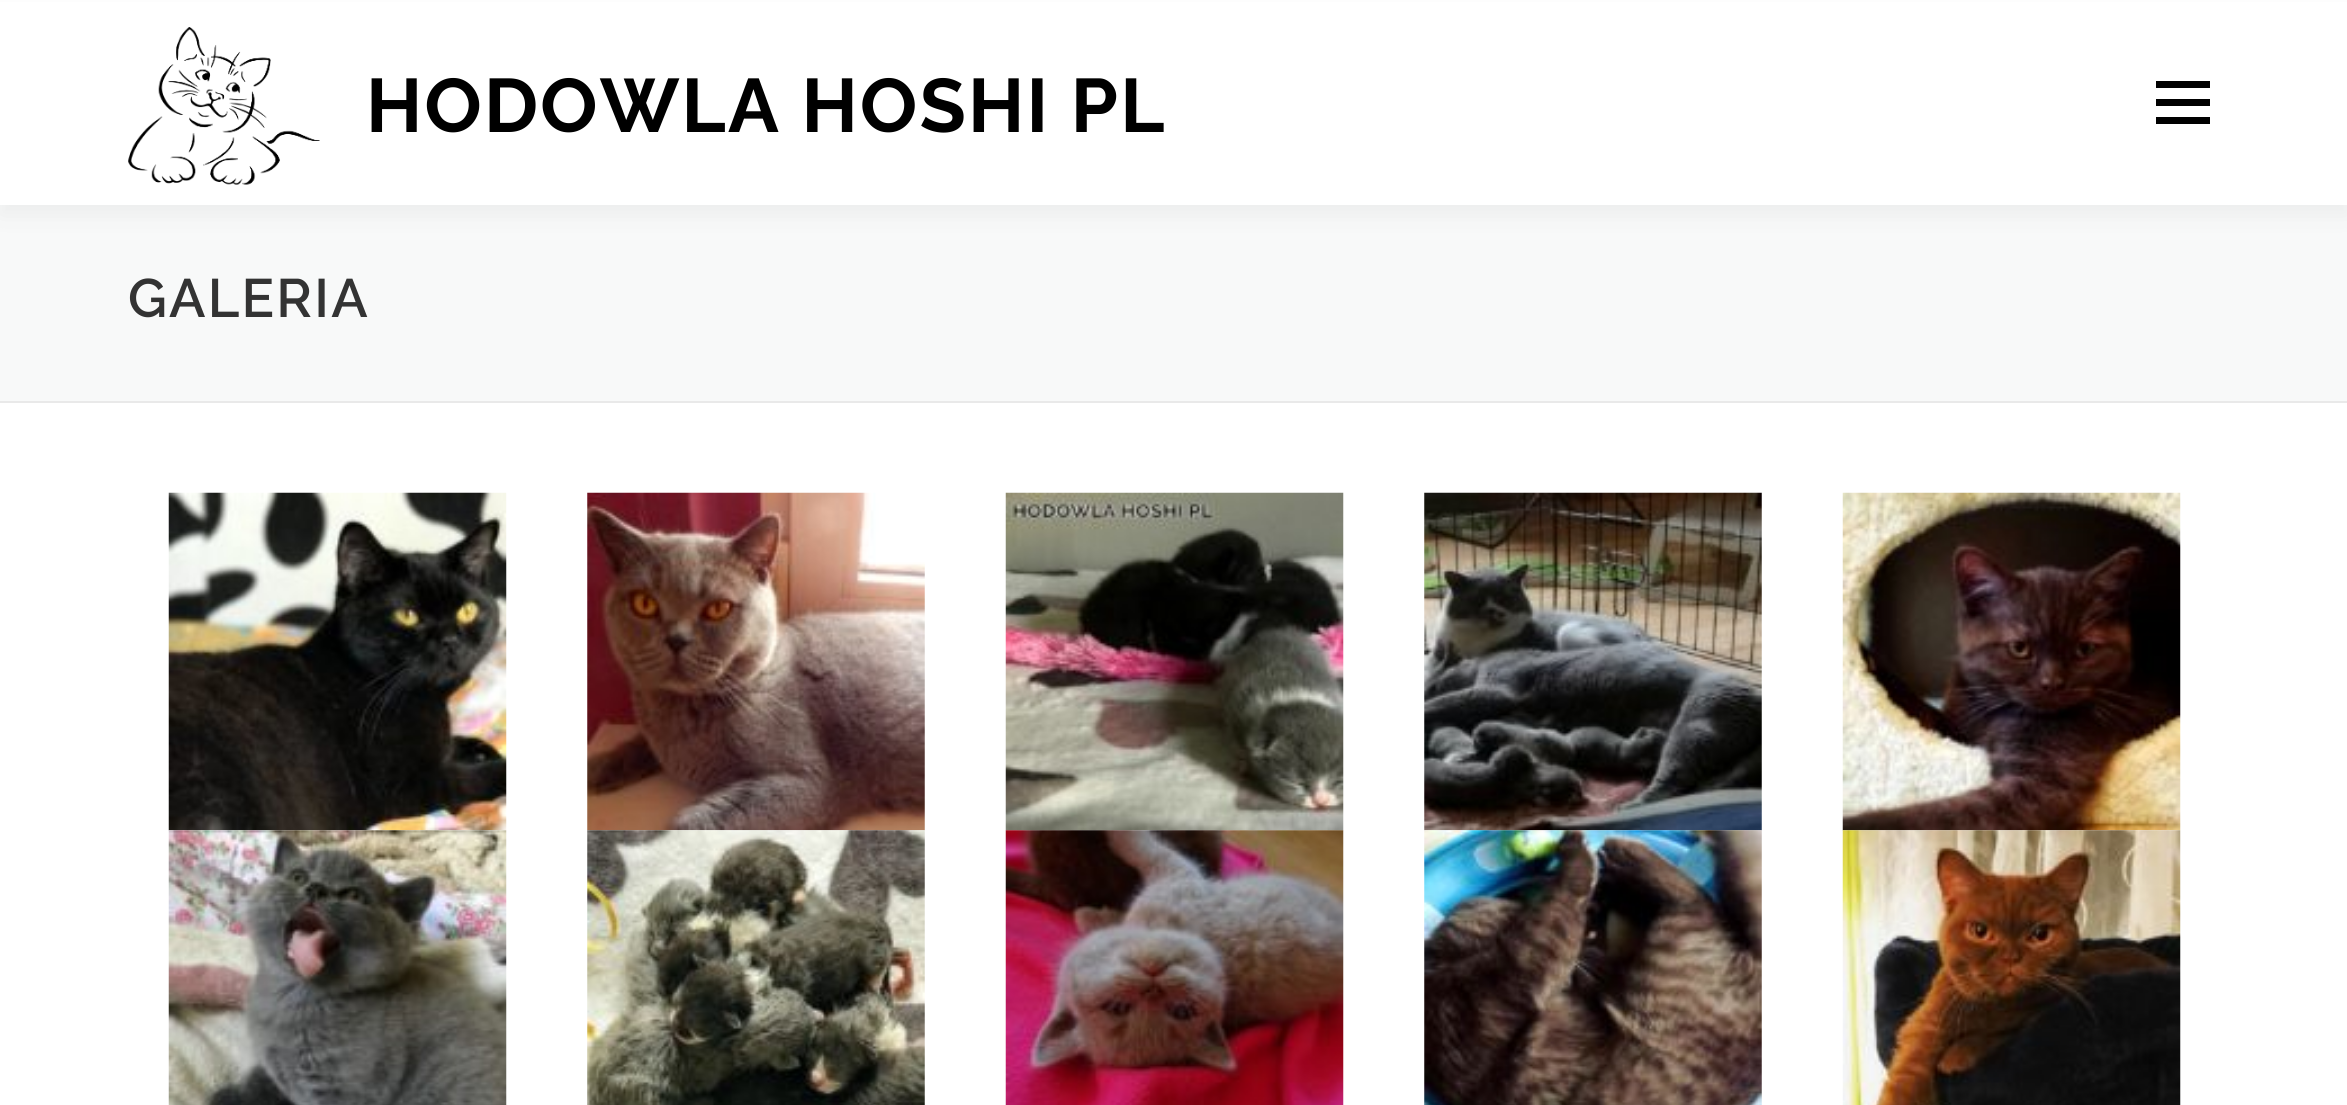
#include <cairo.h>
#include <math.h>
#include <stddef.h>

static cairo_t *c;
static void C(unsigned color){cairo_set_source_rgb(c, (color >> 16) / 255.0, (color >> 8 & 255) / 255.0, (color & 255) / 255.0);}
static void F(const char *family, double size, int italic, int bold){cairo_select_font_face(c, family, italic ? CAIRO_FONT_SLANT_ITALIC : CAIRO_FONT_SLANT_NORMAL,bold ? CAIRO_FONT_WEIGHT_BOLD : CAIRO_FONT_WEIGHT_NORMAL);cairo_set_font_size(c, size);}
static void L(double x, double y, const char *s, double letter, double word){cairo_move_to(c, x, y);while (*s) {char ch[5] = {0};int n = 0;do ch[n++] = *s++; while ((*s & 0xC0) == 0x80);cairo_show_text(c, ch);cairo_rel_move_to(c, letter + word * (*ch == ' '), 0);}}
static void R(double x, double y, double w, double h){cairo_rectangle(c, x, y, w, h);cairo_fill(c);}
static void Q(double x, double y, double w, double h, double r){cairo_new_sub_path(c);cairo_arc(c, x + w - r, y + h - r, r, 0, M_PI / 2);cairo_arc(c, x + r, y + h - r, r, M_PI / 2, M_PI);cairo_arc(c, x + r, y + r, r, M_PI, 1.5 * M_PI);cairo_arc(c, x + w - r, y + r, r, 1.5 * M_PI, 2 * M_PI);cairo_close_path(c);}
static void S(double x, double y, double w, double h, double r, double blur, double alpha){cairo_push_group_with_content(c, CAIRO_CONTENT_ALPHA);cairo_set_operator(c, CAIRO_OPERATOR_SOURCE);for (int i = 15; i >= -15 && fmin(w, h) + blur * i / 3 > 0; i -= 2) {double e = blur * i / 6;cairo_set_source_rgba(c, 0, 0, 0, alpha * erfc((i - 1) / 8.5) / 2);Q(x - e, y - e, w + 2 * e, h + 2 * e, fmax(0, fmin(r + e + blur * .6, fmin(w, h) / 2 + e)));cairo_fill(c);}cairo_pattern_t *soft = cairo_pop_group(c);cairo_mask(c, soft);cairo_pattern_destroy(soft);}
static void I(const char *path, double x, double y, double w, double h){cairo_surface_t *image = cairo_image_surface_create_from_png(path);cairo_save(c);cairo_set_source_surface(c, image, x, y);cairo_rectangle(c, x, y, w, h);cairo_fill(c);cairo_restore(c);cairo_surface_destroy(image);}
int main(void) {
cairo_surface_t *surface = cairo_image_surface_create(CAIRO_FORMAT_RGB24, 2347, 1105);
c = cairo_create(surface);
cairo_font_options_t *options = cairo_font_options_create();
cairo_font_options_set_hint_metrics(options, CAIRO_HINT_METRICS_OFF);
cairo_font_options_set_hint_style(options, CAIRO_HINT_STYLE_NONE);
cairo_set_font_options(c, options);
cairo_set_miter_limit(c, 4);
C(0xffffff);
cairo_paint(c);
C(0xf8f9f9);
R(0,205,2347,196);
C(0x323232);
S(0,11,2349,205,0,11,.06);
C(0xffffff);
R(0,2,2347,203);
I("1.png",128,27,192,158);
F("Raleway",75.6,0,1);
C(0x000000);
L(366,132,"HODOWLA HOSHI PL",2.25,0);
R(2156,99,54,7);
R(2156,81,54,7);
R(2156,117,54,7);
C(0xe9e9e9);
R(0,401,2347,2);
F("Raleway SemiBold",54,0,0);
C(0x333333);
L(128,317,"GALERIA",2.25,0);
I("2.png",168,492,339,339);
I("3.png",587,492,338,339);
I("4.png",1005,492,339,339);
I("5.png",1424,492,338,339);
I("6.png",1842,492,339,339);
I("7.png",168,830,339,275);
I("8.png",587,830,338,275);
I("9.png",1005,830,339,275);
I("10.png",1424,830,338,275);
I("11.png",1842,830,339,275);
cairo_surface_write_to_png(surface, "o.png");
cairo_font_options_destroy(options);
cairo_destroy(c);
cairo_surface_destroy(surface);
return 0;
}
